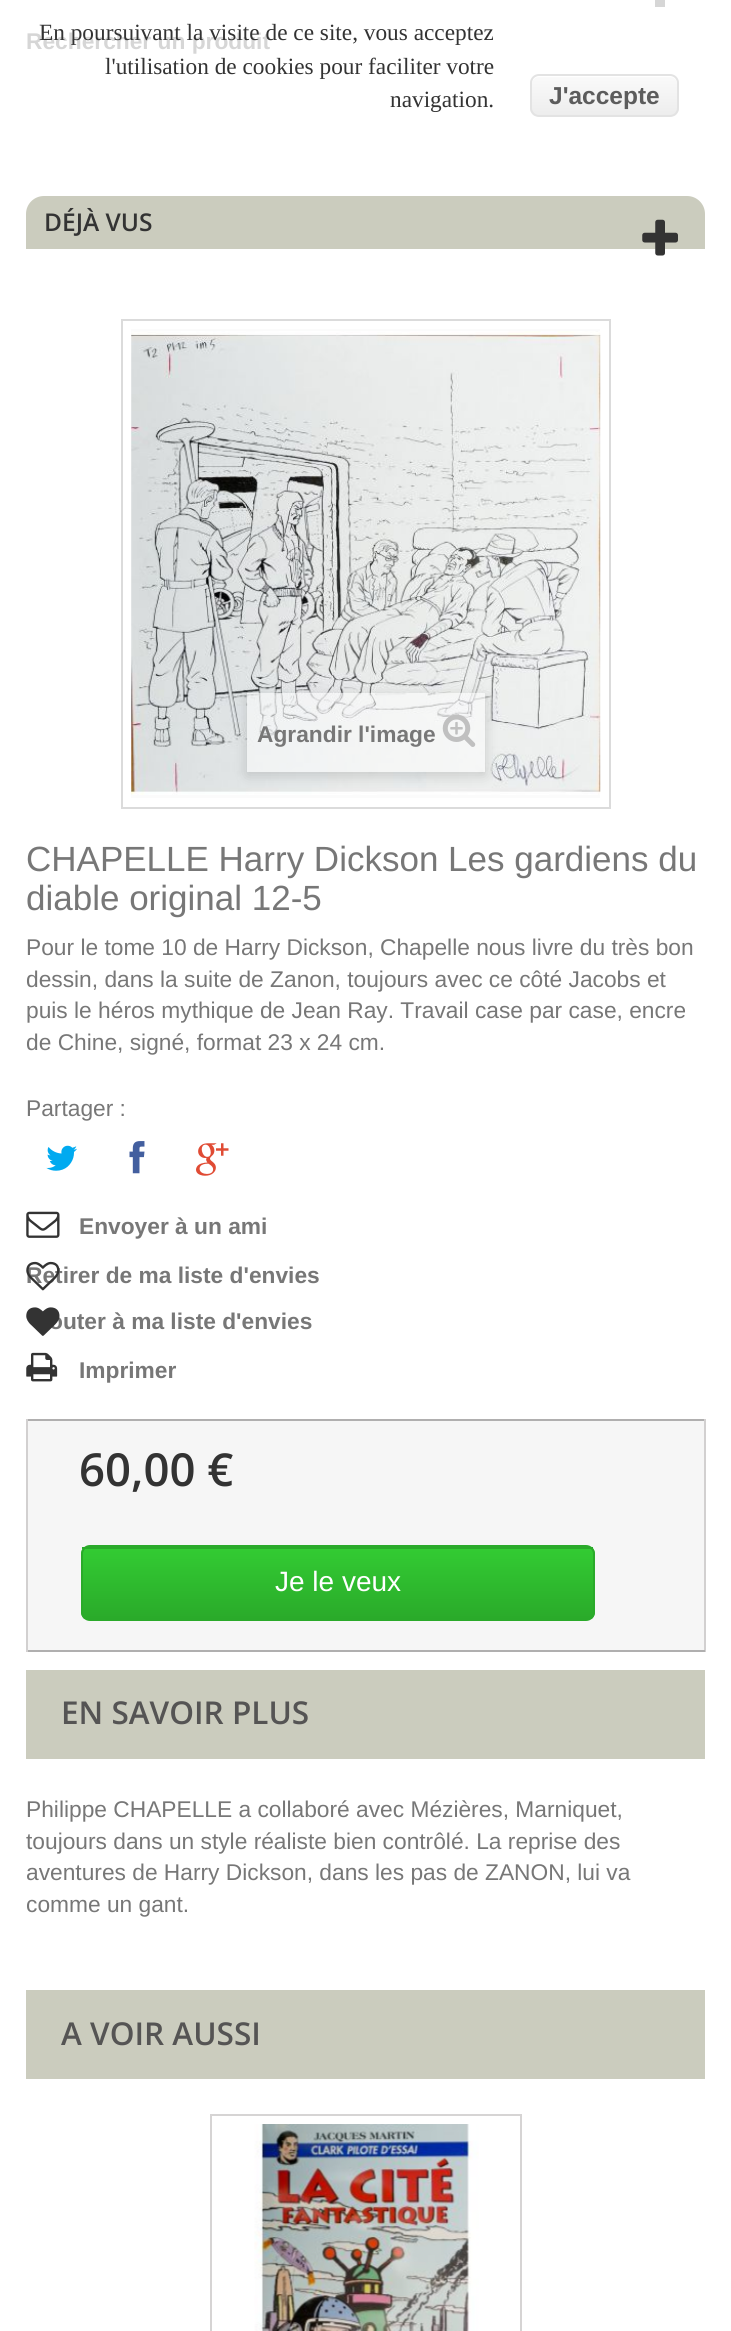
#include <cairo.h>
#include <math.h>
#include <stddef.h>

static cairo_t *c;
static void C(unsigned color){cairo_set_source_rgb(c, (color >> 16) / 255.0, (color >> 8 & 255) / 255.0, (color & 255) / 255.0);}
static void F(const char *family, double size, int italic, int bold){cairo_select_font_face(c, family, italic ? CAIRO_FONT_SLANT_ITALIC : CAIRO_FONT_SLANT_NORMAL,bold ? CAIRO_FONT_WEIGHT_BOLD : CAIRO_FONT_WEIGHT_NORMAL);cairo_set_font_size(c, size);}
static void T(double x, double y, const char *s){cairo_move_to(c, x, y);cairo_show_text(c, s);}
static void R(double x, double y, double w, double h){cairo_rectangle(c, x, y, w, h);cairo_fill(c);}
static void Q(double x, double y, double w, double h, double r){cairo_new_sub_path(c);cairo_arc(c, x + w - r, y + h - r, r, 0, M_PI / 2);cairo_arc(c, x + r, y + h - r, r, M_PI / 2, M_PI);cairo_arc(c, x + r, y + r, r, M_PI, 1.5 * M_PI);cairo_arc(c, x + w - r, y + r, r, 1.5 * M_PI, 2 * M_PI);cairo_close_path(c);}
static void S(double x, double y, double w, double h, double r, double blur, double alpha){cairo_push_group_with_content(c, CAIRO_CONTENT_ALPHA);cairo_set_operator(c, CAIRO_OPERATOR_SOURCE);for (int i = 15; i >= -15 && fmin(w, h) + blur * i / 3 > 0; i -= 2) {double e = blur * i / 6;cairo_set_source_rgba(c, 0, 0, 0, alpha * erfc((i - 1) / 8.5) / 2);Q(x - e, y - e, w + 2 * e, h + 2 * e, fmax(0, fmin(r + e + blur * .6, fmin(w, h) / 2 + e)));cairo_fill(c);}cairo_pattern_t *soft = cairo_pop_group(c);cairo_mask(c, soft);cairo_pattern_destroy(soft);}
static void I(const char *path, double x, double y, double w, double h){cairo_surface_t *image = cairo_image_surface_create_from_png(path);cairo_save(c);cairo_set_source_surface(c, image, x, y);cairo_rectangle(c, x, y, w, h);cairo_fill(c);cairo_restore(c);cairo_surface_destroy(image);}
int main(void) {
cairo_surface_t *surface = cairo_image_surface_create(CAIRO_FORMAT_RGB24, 731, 2331);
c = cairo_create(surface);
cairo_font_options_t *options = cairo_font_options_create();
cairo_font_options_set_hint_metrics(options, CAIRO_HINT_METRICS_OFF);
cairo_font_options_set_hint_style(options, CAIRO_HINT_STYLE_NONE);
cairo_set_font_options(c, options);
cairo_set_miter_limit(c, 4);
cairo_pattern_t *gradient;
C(0xffffff);
cairo_paint(c);
F("Liberation Sans",22.75,0,1);
C(0xd6d6d6);
T(26,49,"Rechercher un produit");
F("Liberation Serif",23.3,0,0);
C(0x333333);
T(39,40,"En poursuivant la visite de ce site, vous acceptez");
T(105,74,"l'utilisation de cookies pour faciliter votre");
T(390,107,"navigation.");
cairo_save(c);
Q(530,74,149,43,9);
cairo_clip(c);
gradient = cairo_pattern_create_linear(532,75,532,116);
cairo_pattern_add_color_stop_rgba(gradient,.05,0.98,0.98,0.98,1);
cairo_pattern_add_color_stop_rgba(gradient,1,0.929,0.929,0.929,1);
cairo_set_source(c,gradient);
cairo_pattern_destroy(gradient);
R(530,75,149,41);
cairo_restore(c);
C(0xffffff);
cairo_new_path(c);
cairo_move_to(c,539,77);
cairo_line_to(c,670,77);
cairo_curve_to(c,674,77,677,80,677,84);
cairo_line_to(c,677,82);
cairo_curve_to(c,677,78,674,75,670,75);
cairo_line_to(c,539,75);
cairo_curve_to(c,535,75,532,78,532,82);
cairo_line_to(c,532,84);
cairo_curve_to(c,532,80,535,77,539,77);
cairo_close_path(c);
cairo_fill(c);
Q(531,75,147,41,8);
C(0xe3e3e3);
cairo_stroke(c);
F("Liberation Sans",24.5,0,1);
C(0x5c5c5c);
T(549,104,"J'accepte");
C(0xd6d6d6);
R(655,0,10,7);
C(0xcbccbe);
cairo_new_path(c);
cairo_move_to(c,44,196);
cairo_line_to(c,687,196);
cairo_curve_to(c,697,196,705,204,705,214);
cairo_line_to(c,705,249);
cairo_line_to(c,26,249);
cairo_line_to(c,26,214);
cairo_curve_to(c,26,204,34,196,44,196);
cairo_close_path(c);
cairo_fill(c);
F("Open Sans SemiBold",24.5,0,0);
C(0x333333);
T(44,231,"DÉJÀ VUS");
I("1.png",642,219,36,37);
cairo_rectangle(c,122,320,488,488);
C(0xdbdbdb);
cairo_stroke(c);
C(0xfbfbfb);
R(131,329,469,469);
I("2.png",131,331,470,464);
cairo_save(c);
cairo_set_fill_rule(c,CAIRO_FILL_RULE_EVEN_ODD);
cairo_new_path(c);
cairo_move_to(c,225,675);
cairo_line_to(c,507,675);
cairo_line_to(c,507,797);
cairo_line_to(c,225,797);
cairo_close_path(c);
cairo_move_to(c,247,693);
cairo_line_to(c,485,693);
cairo_line_to(c,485,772);
cairo_line_to(c,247,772);
cairo_close_path(c);
cairo_clip(c);
C(0x000000);
S(247,697,238,78,0,7,.16);
cairo_restore(c);
cairo_set_source_rgba(c,1,1,1,0.5);
R(247,693,238,79);
F("Liberation Sans",22.75,0,1);
C(0x777777);
T(257,742,"Agrandir l'image");
I("3.png",442,714,34,33);
F("Liberation Sans",35,0,0);
T(26,871,"CHAPELLE Harry Dickson Les gardiens du");
T(26,910,"diable original 12-5");
F("Liberation Sans",22.75,0,0);
T(26,955,"Pour le tome 10 de Harry Dickson, Chapelle nous livre du très bon");
T(26,987,"dessin, dans la suite de Zanon, toujours avec ce côté Jacobs et");
T(26,1018,"puis le héros mythique de Jean Ray. Travail case par case, encre");
T(26,1050,"de Chine, signé, format 23 x 24 cm.");
T(26,1116,"Partager :");
I("4.png",46,1145,31,26);
I("5.png",129,1141,16,33);
I("6.png",196,1143,33,33);
I("7.png",26,1211,34,27);
F("Liberation Sans",22.75,0,1);
T(79,1234,"Envoyer à un ami");
T(26,1283,"Retirer de ma liste d'envies");
I("8.png",26,1261,34,30);
T(49,1329,"outer à ma liste d'envies");
I("9.png",26,1307,34,29);
I("10.png",26,1352,32,30);
T(79,1378,"Imprimer");
C(0xf6f6f6);
R(28,1421,676,229);
C(0xb0afaf);
R(26,1419,679,2);
C(0xd2d0d0);
R(704,1419,2,233);
C(0xb0afaf);
R(26,1650,679,2);
C(0xd2d0d0);
R(26,1419,2,233);
F("Open Sans SemiBold",45.5,0,0);
C(0x333333);
T(79,1486,"60,00 €");
cairo_save(c);
Q(81,1545,514,76,9);
cairo_clip(c);
gradient = cairo_pattern_create_linear(338,1547,338,1619);
cairo_pattern_add_color_stop_rgba(gradient,0,0.2,0.8,0.2,1);
cairo_pattern_add_color_stop_rgba(gradient,1,0.165,0.667,0.165,1);
cairo_set_source(c,gradient);
cairo_pattern_destroy(gradient);
R(81,1548,514,71);
cairo_restore(c);
Q(82,1546,512,74,8);
C(0x2aaa2a);
cairo_stroke(c);
R(82,1547,511,2);
F("Liberation Sans",28,0,0);
C(0xffffff);
T(275,1591,"Je le veux");
C(0xcbccbe);
R(26,1670,679,89);
F("Open Sans SemiBold",31.5,0,0);
C(0x555454);
T(61,1724,"EN SAVOIR PLUS");
F("Liberation Sans",22.75,0,0);
C(0x777777);
T(26,1817,"Philippe CHAPELLE a collaboré avec Mézières, Marniquet,");
T(26,1849,"toujours dans un style réaliste bien contrôlé. La reprise des");
T(26,1880,"aventures de Harry Dickson, dans les pas de ZANON, lui va");
T(26,1912,"comme un gant.");
C(0xcbccbe);
R(26,1990,679,89);
F("Open Sans SemiBold",31.5,0,0);
C(0x555454);
T(61,2045,"A VOIR AUSSI");
cairo_rectangle(c,211,2115,310,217);
C(0xd6d4d4);
cairo_stroke(c);
I("11.png",254,2124,225,207);
cairo_surface_write_to_png(surface, "o.png");
cairo_font_options_destroy(options);
cairo_destroy(c);
cairo_surface_destroy(surface);
return 0;
}
